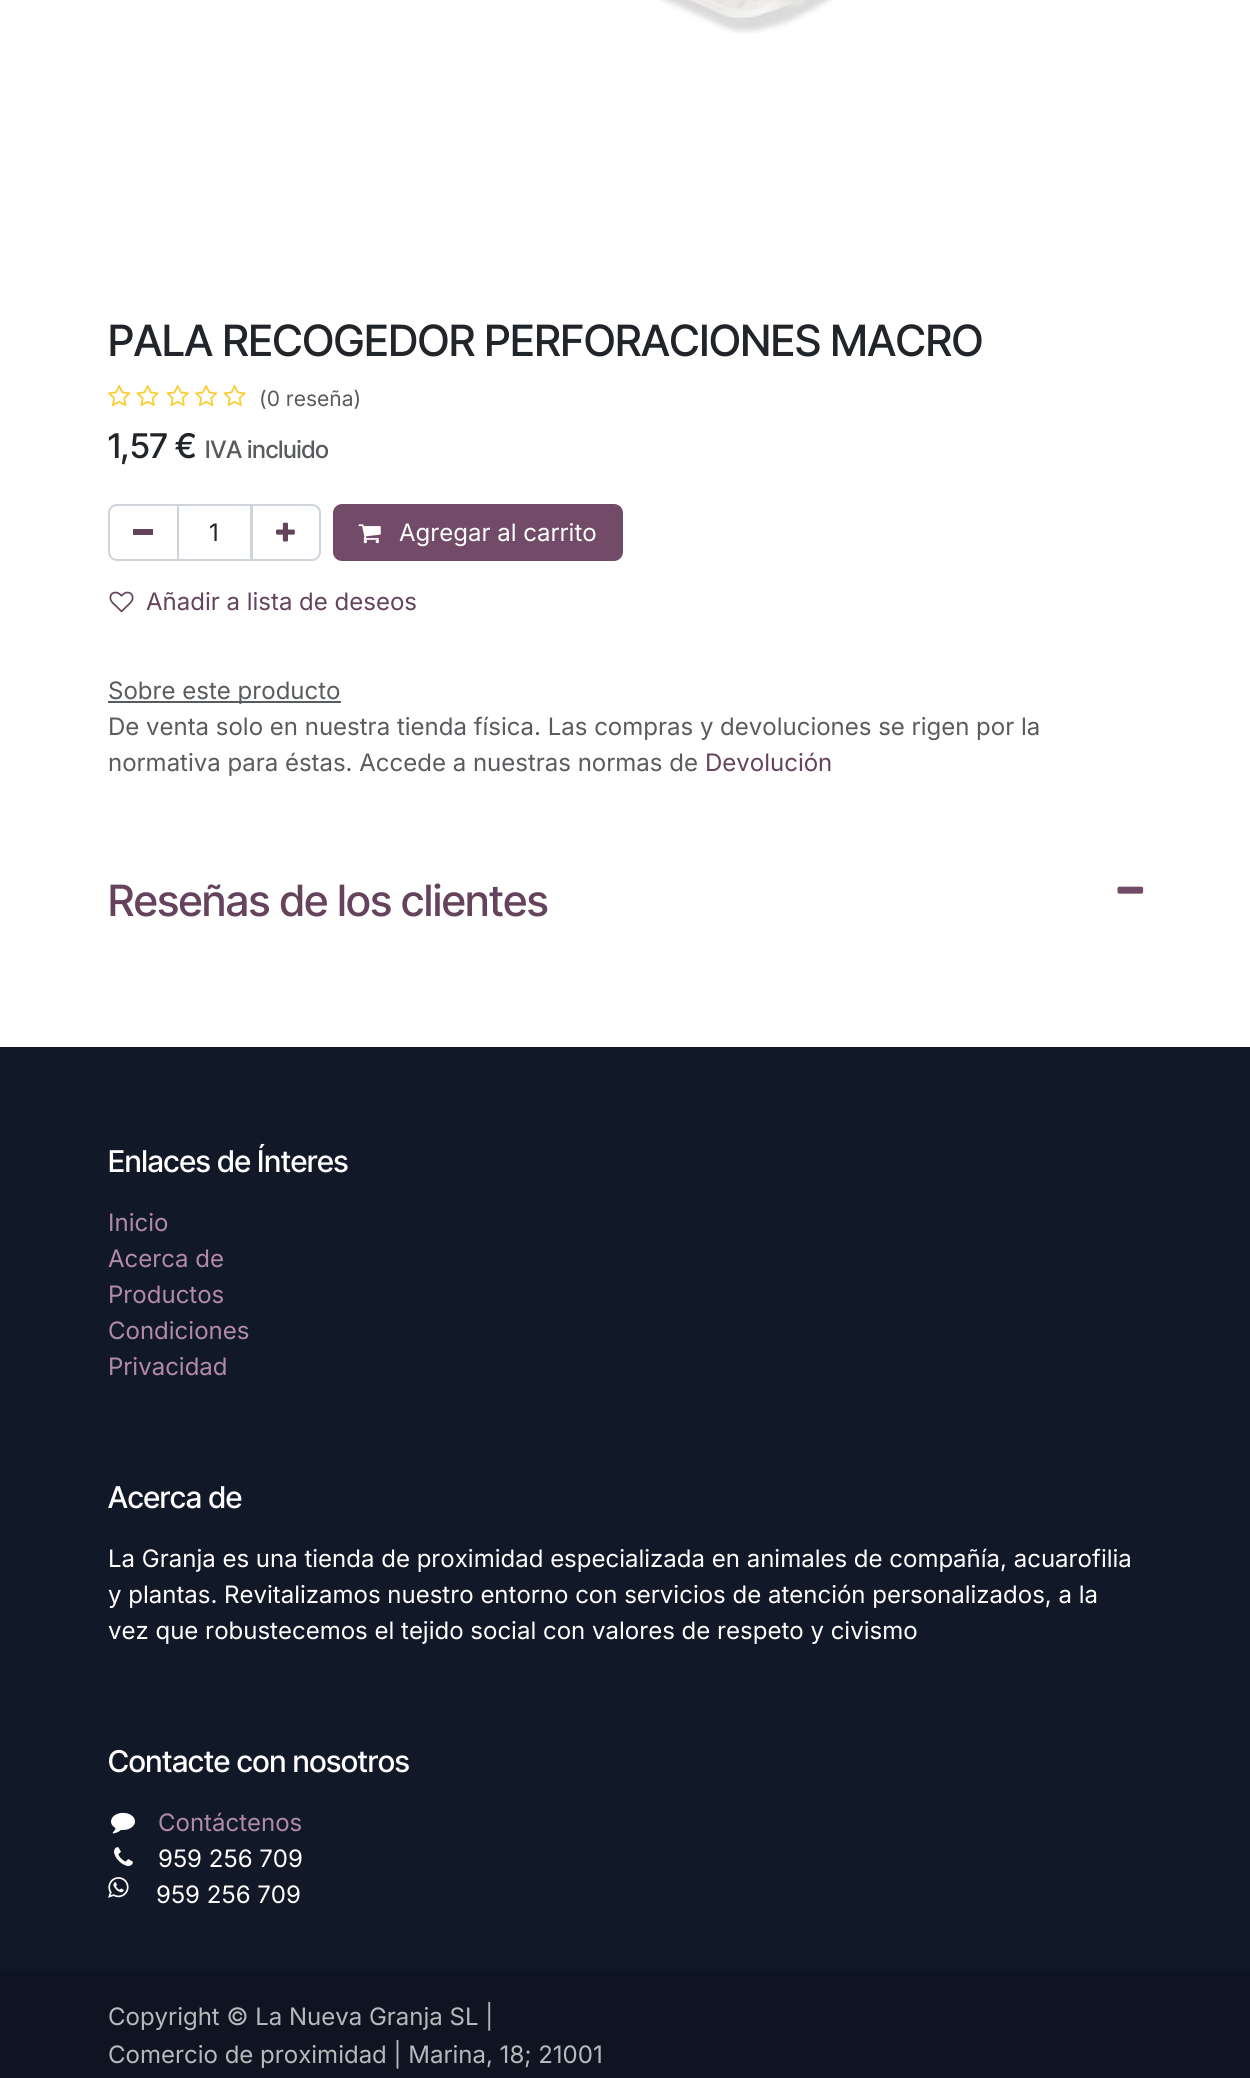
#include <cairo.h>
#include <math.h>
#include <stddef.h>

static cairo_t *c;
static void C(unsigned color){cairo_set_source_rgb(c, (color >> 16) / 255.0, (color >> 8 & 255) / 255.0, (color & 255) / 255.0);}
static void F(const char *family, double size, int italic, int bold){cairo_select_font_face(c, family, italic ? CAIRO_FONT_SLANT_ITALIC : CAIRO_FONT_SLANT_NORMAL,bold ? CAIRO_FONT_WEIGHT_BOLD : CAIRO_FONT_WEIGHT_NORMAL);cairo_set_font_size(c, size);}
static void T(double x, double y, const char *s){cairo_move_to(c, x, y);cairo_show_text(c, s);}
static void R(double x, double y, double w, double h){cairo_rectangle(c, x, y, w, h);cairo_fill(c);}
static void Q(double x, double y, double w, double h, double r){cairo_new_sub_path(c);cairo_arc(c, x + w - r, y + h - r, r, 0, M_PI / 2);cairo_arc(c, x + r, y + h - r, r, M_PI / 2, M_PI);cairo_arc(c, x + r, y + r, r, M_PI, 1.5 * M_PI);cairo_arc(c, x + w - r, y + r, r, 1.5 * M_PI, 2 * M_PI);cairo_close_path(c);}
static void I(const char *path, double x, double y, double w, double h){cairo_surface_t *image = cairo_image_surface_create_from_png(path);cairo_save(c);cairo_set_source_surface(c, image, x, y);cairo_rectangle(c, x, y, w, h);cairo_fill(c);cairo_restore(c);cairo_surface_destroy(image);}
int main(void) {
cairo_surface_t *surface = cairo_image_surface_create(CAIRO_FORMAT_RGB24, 1250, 2078);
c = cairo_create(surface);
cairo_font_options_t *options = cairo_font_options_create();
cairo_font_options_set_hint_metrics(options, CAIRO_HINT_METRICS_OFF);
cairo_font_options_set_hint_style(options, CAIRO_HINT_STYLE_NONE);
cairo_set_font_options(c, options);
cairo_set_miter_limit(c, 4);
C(0xffffff);
cairo_paint(c);
I("1.png",659,0,174,34);
F("Inter Tight Medium",43.1,0,0);
C(0x212529);
T(108,356,"PALA RECOGEDOR PERFORACIONES MACRO");
I("2.png",108,384,23,23);
I("3.png",136,384,23,23);
I("3.png",166,384,23,23);
I("2.png",195,384,23,23);
I("3.png",223,384,23,23);
F("Inter",21,0,0);
C(0x595c5f);
T(259,406,"(0 reseña)");
F("Inter Tight Medium",34,0,0);
C(0x212529);
T(108,458,"1,57 €");
F("Inter Tight Medium",24,0,0);
C(0x595c5f);
T(205,458,"IVA incluido");
cairo_rectangle(c,178,505,73,55);
C(0xced4da);
cairo_stroke(c);
cairo_new_path(c);
cairo_move_to(c,117,505);
cairo_line_to(c,178,505);
cairo_line_to(c,178,560);
cairo_line_to(c,117,560);
cairo_curve_to(c,112.5,560,109,556.5,109,552);
cairo_line_to(c,109,513);
cairo_curve_to(c,109,508.5,112.5,505,117,505);
cairo_close_path(c);
cairo_stroke(c);
C(0x65435c);
R(133,529,20,6);
F("Inter",24,0,0);
C(0x212529);
T(209,541,"1");
cairo_new_path(c);
cairo_move_to(c,252,505);
cairo_line_to(c,312,505);
cairo_curve_to(c,316.5,505,320,508.5,320,513);
cairo_line_to(c,320,552);
cairo_curve_to(c,320,556.5,316.5,560,312,560);
cairo_line_to(c,252,560);
cairo_close_path(c);
C(0xced4da);
cairo_stroke(c);
I("4.png",276,522,19,20);
C(0x714b67);
Q(334,505,288,55,8);
cairo_fill_preserve(c);
cairo_stroke(c);
I("5.png",358,524,23,20);
C(0xffffff);
T(399,541,"Agregar al carrito");
I("6.png",109,591,25,22);
C(0x65435c);
T(146,610,"Añadir a lista de deseos");
C(0x595c5f);
R(108,701,233,2);
T(108,699,"Sobre este producto");
T(108,735,"De venta solo en nuestra tienda física. Las compras y devoluciones se rigen por la");
T(108,771,"normativa para éstas. Accede a nuestras normas de");
C(0x65435c);
T(705,771,"Devolución");
F("Inter Tight Medium",43.1,0,0);
T(108,916,"Reseñas de los clientes");
I("7.png",1117,886,27,8);
C(0x111827);
R(0,1047,1250,1031);
F("Inter Tight Medium",30,0,0);
C(0xffffff);
T(108,1172,"Enlaces de Ínteres");
F("Inter",24,0,0);
C(0xb18aa7);
T(108,1231,"Inicio");
T(108,1267,"Acerca de");
T(108,1303,"Productos");
T(108,1339,"Condiciones");
T(108,1375,"Privacidad");
F("Inter Tight Medium",30,0,0);
C(0xffffff);
T(108,1508,"Acerca de");
F("Inter",24,0,0);
T(108,1567,"La Granja es una tienda de proximidad especializada en animales de compañía, acuarofilia");
T(108,1603,"y plantas. Revitalizamos nuestro entorno con servicios de atención personalizados, a la");
T(108,1639,"vez que robustecemos el tejido social con valores de respeto y civismo");
F("Inter Tight Medium",30,0,0);
T(108,1772,"Contacte con nosotros");
I("8.png",111,1812,24,22);
F("Inter",24,0,0);
C(0xb18aa7);
T(158,1831,"Contáctenos");
I("9.png",114,1847,19,19);
C(0xffffff);
T(158,1867,"959 256 709");
I("10.png",108,1877,21,21);
T(156,1903,"959 256 709");
cairo_set_source_rgba(c,0,0,0,0.15);
R(0,1971,1250,107);
C(0xb7b9bc);
T(108,2025,"Copyright © La Nueva Granja SL |");
T(108,2063,"Comercio de proximidad | Marina, 18; 21001");
cairo_surface_write_to_png(surface, "o.png");
cairo_font_options_destroy(options);
cairo_destroy(c);
cairo_surface_destroy(surface);
return 0;
}
